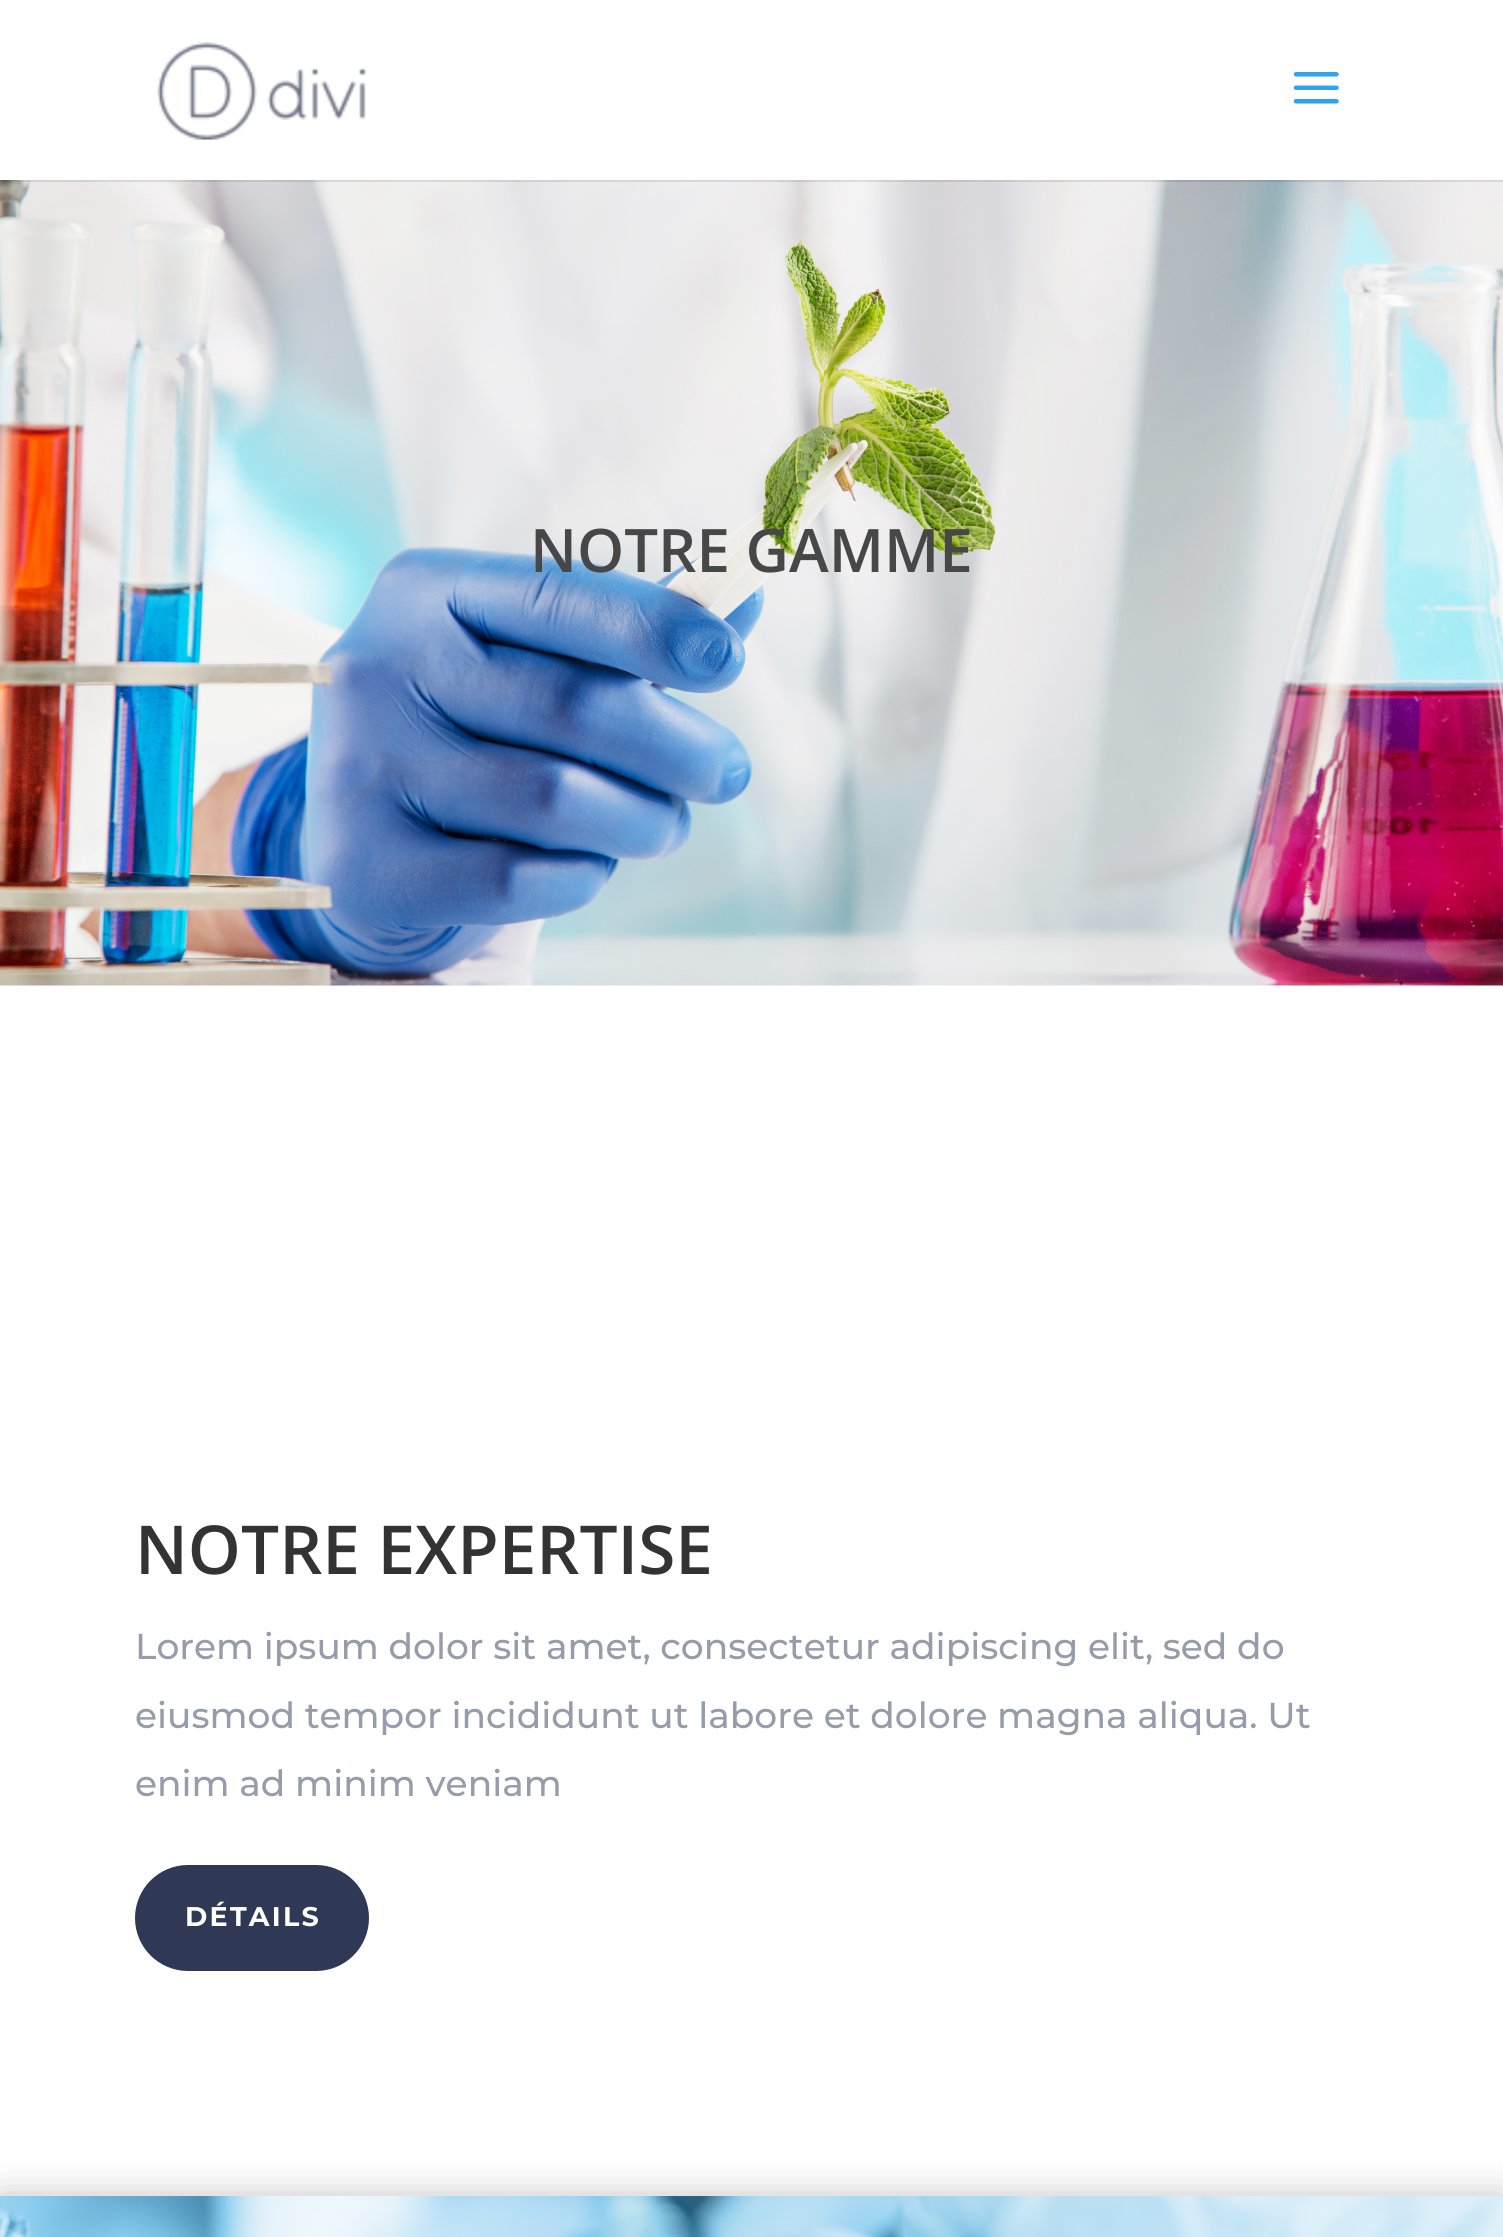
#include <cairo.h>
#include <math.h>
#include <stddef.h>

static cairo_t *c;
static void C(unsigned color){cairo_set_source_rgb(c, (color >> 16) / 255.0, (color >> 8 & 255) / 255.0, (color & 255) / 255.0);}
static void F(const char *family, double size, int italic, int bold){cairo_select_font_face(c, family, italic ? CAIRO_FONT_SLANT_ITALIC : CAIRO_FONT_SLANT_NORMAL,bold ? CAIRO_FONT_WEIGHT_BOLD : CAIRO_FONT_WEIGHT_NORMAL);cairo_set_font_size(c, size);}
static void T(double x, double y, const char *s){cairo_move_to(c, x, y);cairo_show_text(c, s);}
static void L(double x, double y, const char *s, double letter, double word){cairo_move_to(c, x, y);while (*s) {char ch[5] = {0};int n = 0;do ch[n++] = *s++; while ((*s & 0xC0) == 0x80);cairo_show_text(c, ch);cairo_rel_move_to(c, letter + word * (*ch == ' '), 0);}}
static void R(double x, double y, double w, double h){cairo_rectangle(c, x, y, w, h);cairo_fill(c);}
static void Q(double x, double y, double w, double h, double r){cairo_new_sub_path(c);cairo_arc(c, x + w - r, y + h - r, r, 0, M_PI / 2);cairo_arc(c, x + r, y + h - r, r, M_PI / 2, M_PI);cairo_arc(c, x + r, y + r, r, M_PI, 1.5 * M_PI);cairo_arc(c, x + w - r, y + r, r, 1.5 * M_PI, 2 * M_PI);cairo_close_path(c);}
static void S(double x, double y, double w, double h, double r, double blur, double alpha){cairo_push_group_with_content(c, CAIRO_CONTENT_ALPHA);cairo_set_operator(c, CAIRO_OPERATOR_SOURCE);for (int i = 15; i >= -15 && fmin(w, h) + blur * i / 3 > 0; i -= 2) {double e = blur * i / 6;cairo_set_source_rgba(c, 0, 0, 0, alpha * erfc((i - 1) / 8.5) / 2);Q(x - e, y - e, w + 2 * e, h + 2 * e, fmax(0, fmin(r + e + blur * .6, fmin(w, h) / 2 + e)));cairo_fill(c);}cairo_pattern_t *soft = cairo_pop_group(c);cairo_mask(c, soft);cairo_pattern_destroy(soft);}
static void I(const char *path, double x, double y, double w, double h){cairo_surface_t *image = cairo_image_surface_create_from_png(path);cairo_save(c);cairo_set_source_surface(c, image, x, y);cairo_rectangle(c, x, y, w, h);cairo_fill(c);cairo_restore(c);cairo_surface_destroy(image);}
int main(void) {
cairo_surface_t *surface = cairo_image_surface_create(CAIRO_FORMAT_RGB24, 1503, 2237);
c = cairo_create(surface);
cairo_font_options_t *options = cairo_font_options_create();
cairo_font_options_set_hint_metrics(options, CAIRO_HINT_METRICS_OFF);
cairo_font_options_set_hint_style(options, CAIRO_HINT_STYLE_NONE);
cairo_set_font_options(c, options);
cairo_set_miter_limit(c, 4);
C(0xffffff);
cairo_paint(c);
I("3.png",0,180,1503,806);
cairo_set_source_rgba(c,0,0,0,0.1);
R(0,180,1503,2);
I("1.png",157,42,210,98);
I("2.png",1293,72,46,32);
F("Open Sans SemiBold",60,0,0);
C(0x474747);
T(530,572,"NOTRE GAMME");
F("Open Sans SemiBold",67.5,0,0);
C(0x333333);
T(135,1574,"NOTRE EXPERTISE");
F("Montserrat Medium",36,0,0);
C(0x979caa);
T(135,1659,"Lorem ipsum dolor sit amet, consectetur adipiscing elit, sed do");
T(135,1728,"eiusmod tempor incididunt ut labore et dolore magna aliqua. Ut");
T(135,1796,"enim ad minim veniam");
C(0x2f3854);
Q(135,1865,234,106,53);
cairo_fill(c);
F("Montserrat",27,0,1);
C(0xffffff);
L(185,1926,"DÉTAILS",2.25,0);
C(0x000000);
S(0,2201,1503,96,0,20,.3);
I("4.png",0,2196,1503,41);
cairo_surface_write_to_png(surface, "o.png");
cairo_font_options_destroy(options);
cairo_destroy(c);
cairo_surface_destroy(surface);
return 0;
}
